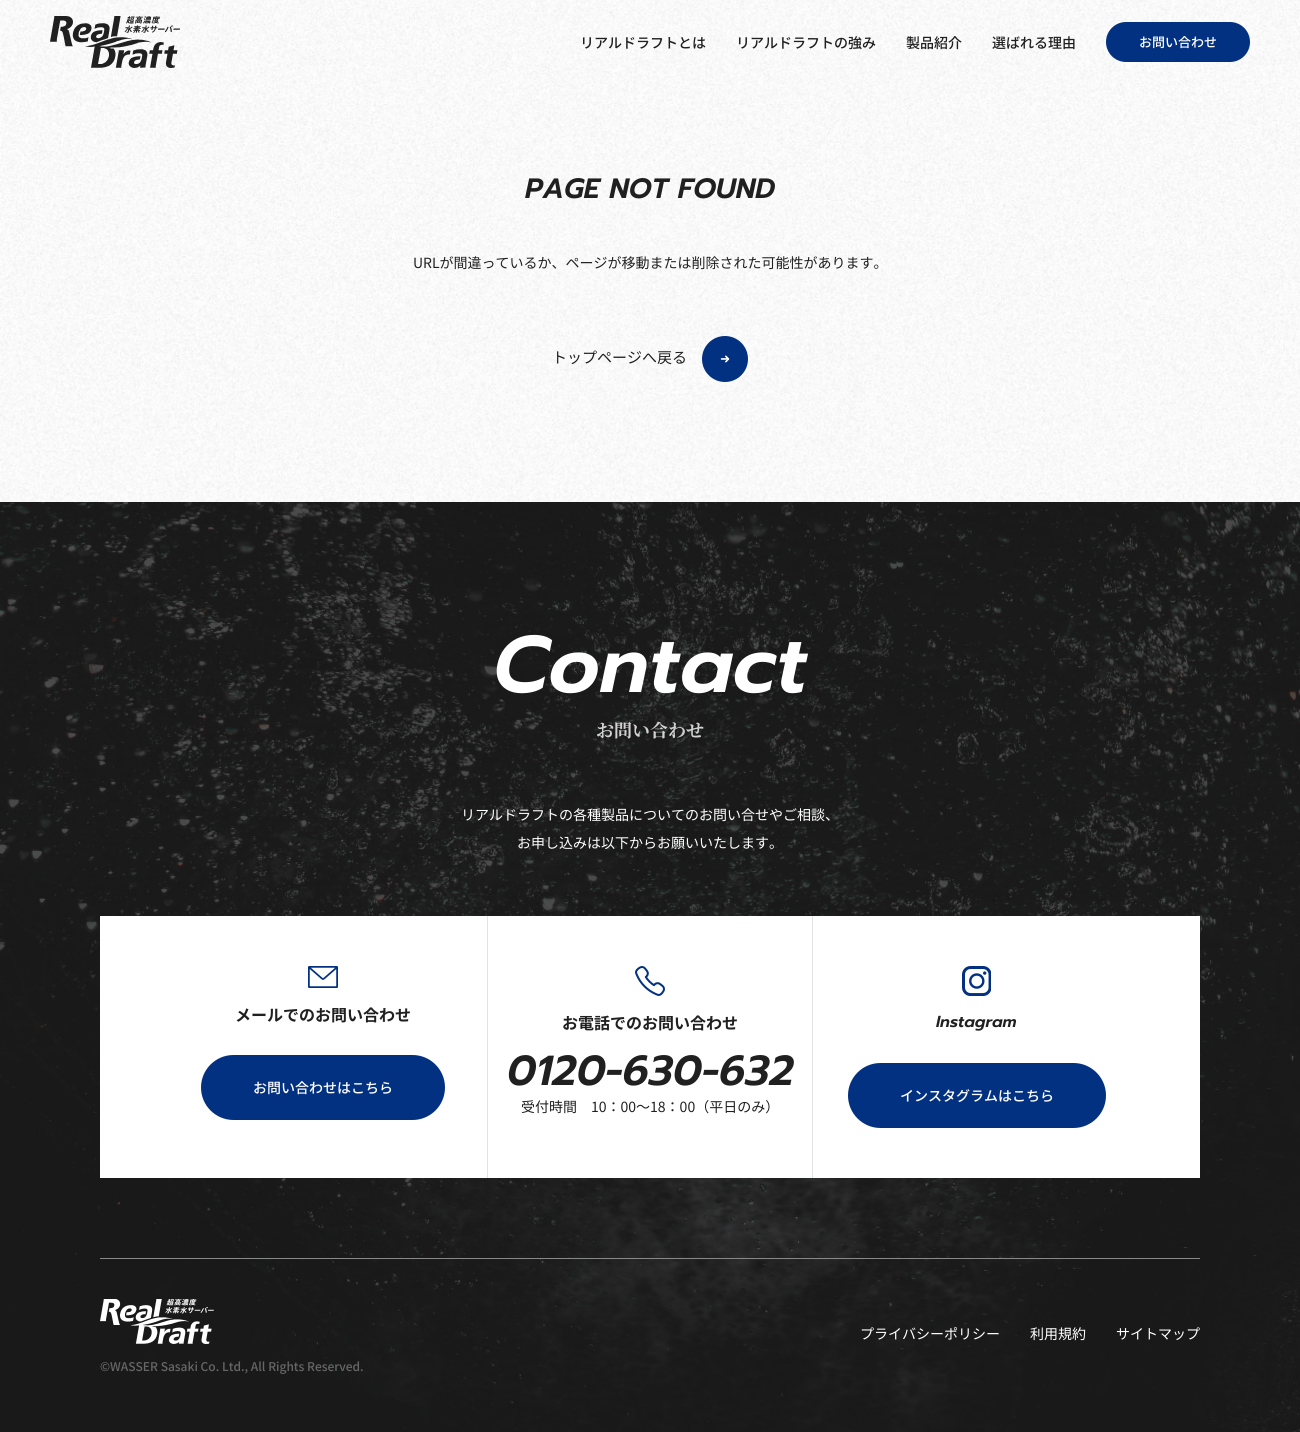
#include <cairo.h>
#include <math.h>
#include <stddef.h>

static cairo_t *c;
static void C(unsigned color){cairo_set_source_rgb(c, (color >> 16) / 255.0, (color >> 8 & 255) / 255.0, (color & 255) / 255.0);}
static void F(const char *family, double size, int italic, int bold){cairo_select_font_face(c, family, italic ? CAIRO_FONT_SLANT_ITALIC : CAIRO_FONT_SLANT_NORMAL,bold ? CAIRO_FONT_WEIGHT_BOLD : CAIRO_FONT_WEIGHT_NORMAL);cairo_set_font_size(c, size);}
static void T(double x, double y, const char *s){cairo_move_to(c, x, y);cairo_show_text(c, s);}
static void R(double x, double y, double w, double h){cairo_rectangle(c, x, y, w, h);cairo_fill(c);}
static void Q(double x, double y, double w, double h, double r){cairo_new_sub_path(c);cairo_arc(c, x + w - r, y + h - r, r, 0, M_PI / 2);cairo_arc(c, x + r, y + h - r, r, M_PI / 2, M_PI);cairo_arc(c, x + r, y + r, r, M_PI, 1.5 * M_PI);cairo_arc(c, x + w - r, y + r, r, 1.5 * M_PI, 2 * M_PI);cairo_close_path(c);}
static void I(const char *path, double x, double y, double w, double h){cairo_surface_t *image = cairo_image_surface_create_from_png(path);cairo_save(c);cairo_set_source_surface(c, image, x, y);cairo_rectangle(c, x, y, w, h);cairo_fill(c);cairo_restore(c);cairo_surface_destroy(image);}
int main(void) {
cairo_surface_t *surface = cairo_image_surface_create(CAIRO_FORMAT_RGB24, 1300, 1432);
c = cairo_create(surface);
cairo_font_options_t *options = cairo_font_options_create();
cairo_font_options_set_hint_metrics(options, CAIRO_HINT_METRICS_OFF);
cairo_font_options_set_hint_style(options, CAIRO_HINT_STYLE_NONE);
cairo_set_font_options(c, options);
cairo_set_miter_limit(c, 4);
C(0xffffff);
cairo_paint(c);
I("2.png",0,0,1300,502);
I("1.png",50,16,130,52);
F("Noto Sans JP Medium",14,0,0);
C(0x202020);
T(580,48,"リアルドラフトとは");
T(736,48,"リアルドラフトの強み");
T(906,48,"製品紹介");
T(992,48,"選ばれる理由");
C(0x023181);
Q(1106,22,144,40,20);
cairo_fill(c);
F("Noto Sans JP Medium",13,0,0);
C(0xffffff);
T(1139,47,"お問い合わせ");
F("Prompt SemiBold",28,1,0);
C(0x202020);
T(525,198,"PAGE NOT FOUND");
F("Noto Sans JP",14,0,0);
T(413,268,"URLが間違っているか、ページが移動または削除された可能性があります。");
F("Noto Sans JP",15,0,0);
T(552,363,"トップページへ戻る");
I("3.png",702,336,46,46);
I("4.png",0,502,1300,930);
F("Prompt SemiBold",80,1,0);
C(0xffffff);
T(493,692,"Contact");
F("Noto Serif JP",18,0,1);
C(0xd2d2d2);
T(596,737,"お問い合わせ");
F("Noto Sans JP",14,0,0);
C(0xffffff);
T(461,820,"リアルドラフトの各種製品についてのお問い合せやご相談、");
T(517,848,"お申し込みは以下からお願いいたします。");
R(100,916,1100,262);
I("5.png",308,966,30,22);
F("Noto Sans JP",16,0,1);
C(0x202020);
T(235,1021,"メールでのお問い合わせ");
C(0x023181);
Q(201,1055,244,65,32.5);
cairo_fill(c);
F("Noto Sans JP Medium",14,0,0);
C(0xffffff);
T(253,1093,"お問い合わせはこちら");
C(0xe3e3e3);
R(812,916,1,262);
R(487,916,1,262);
I("6.png",635,966,30,30);
F("Noto Sans JP",16,0,1);
C(0x202020);
T(562,1029,"お電話でのお問い合わせ");
F("Prompt SemiBold",42,1,0);
T(507,1085,"0120-630-632");
F("Noto Sans JP",14,0,0);
T(521,1112,"受付時間　10：00～18：00（平日のみ）");
I("7.png",962,966,29,30);
F("Prompt SemiBold",16,1,0);
T(936,1027,"Instagram");
C(0x023181);
Q(848,1063,258,65,32.5);
cairo_fill(c);
F("Noto Sans JP Medium",14,0,0);
C(0xffffff);
T(900,1101,"インスタグラムはこちら");
C(0x888888);
R(100,1258,1100,1);
I("8.png",100,1299,114,45);
F("Noto Sans JP",14,0,0);
C(0xffffff);
T(860,1339,"プライバシーポリシー");
T(1030,1339,"利用規約");
T(1116,1339,"サイトマップ");
F("Noto Sans JP Medium",12,0,0);
C(0x666666);
T(100,1371,"©WASSER Sasaki Co. Ltd., All Rights Reserved.");
cairo_surface_write_to_png(surface, "o.png");
cairo_font_options_destroy(options);
cairo_destroy(c);
cairo_surface_destroy(surface);
return 0;
}
